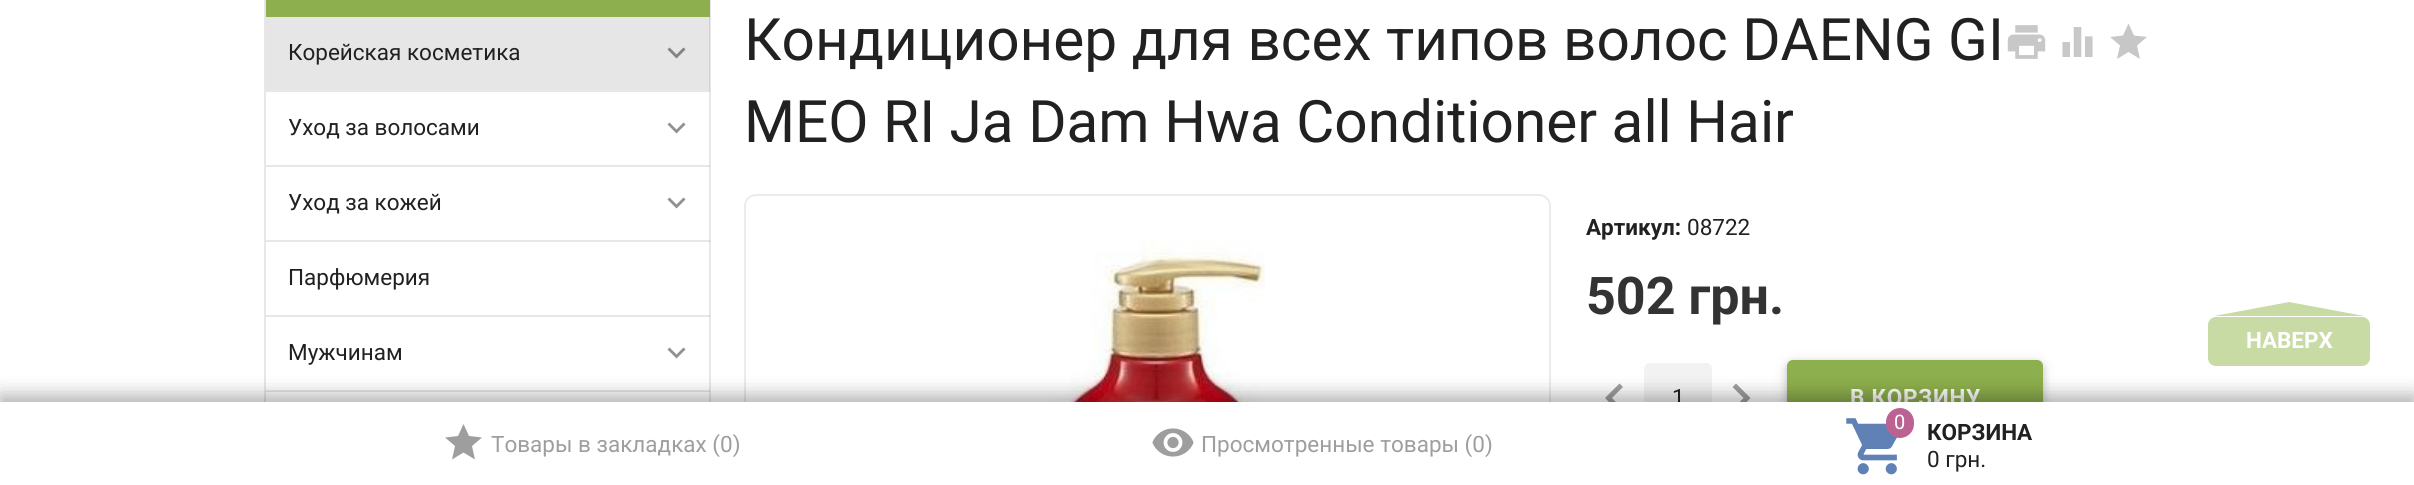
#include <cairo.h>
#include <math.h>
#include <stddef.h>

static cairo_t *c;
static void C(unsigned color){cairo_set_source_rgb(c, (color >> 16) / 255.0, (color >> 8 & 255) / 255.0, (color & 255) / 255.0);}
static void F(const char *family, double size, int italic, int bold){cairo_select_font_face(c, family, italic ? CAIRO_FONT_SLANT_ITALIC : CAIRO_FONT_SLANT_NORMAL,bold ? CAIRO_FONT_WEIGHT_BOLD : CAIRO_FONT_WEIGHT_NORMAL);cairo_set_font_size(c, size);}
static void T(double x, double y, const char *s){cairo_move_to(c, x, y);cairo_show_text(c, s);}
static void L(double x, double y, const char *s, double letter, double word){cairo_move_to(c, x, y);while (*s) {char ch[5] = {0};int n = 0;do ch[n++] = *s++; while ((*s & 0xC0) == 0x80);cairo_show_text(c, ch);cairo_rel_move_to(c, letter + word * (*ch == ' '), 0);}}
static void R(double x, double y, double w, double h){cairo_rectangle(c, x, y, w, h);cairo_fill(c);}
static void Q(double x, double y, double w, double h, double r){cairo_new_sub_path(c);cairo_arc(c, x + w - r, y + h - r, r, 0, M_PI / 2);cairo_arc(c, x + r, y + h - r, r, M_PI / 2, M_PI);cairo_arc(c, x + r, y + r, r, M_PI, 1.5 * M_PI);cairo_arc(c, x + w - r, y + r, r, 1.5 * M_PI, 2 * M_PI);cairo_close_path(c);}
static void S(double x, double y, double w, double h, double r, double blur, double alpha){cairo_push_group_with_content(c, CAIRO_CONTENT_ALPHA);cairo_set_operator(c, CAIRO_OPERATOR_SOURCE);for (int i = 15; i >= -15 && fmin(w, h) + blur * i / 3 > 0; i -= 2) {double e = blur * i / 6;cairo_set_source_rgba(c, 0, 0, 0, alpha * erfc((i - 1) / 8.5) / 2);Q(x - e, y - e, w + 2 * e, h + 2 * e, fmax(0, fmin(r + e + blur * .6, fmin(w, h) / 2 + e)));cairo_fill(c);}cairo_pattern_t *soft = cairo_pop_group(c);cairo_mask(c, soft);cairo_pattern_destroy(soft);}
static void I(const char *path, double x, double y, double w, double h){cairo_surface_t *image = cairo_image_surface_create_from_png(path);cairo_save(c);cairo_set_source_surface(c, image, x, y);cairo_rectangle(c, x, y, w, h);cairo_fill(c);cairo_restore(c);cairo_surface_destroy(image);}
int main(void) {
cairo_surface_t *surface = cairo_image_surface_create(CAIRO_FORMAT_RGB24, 2414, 485);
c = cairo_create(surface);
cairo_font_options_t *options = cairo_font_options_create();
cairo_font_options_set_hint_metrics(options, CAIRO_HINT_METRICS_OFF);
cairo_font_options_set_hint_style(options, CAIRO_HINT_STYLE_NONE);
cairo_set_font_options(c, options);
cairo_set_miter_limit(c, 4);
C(0xffffff);
cairo_paint(c);
cairo_rectangle(c,265,-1,445,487);
C(0xe7e7e7);
cairo_stroke(c);
C(0x8eaf4d);
R(266,0,444,17);
cairo_set_source_rgba(c,0,0,0,0.1);
R(266,17,444,73);
F("Roboto",22.5,0,0);
C(0x212121);
T(288,60,"Корейская косметика");
C(0x828282);
cairo_new_path(c);
cairo_move_to(c,683.5,47.5);
cairo_line_to(c,685.5,49.5);
cairo_line_to(c,676.5,58.5);
cairo_line_to(c,667.5,49.5);
cairo_line_to(c,669.5,47.5);
cairo_line_to(c,676.5,54.5);
cairo_close_path(c);
cairo_fill(c);
cairo_set_source_rgba(c,0.2,0.2,0.2,0.12);
R(266,90,444,2);
C(0x212121);
T(288,135,"Уход за волосами");
C(0x919191);
cairo_new_path(c);
cairo_move_to(c,683.5,122.5);
cairo_line_to(c,685.5,124.5);
cairo_line_to(c,676.5,133.5);
cairo_line_to(c,667.5,124.5);
cairo_line_to(c,669.5,122.5);
cairo_line_to(c,676.5,129.5);
cairo_close_path(c);
cairo_fill(c);
cairo_set_source_rgba(c,0.2,0.2,0.2,0.12);
R(266,165,444,2);
C(0x212121);
T(288,210,"Уход за кожей");
C(0x919191);
cairo_new_path(c);
cairo_move_to(c,683.5,197.5);
cairo_line_to(c,685.5,199.5);
cairo_line_to(c,676.5,208.5);
cairo_line_to(c,667.5,199.5);
cairo_line_to(c,669.5,197.5);
cairo_line_to(c,676.5,204.5);
cairo_close_path(c);
cairo_fill(c);
cairo_set_source_rgba(c,0.2,0.2,0.2,0.12);
R(266,240,444,2);
C(0x212121);
T(288,285,"Парфюмерия");
cairo_set_source_rgba(c,0.2,0.2,0.2,0.12);
R(266,315,444,2);
C(0x212121);
T(288,360,"Мужчинам");
C(0x919191);
cairo_new_path(c);
cairo_move_to(c,683.5,347.5);
cairo_line_to(c,685.5,349.5);
cairo_line_to(c,676.5,358.5);
cairo_line_to(c,667.5,349.5);
cairo_line_to(c,669.5,347.5);
cairo_line_to(c,676.5,354.5);
cairo_close_path(c);
cairo_fill(c);
cairo_set_source_rgba(c,0.2,0.2,0.2,0.12);
R(266,390,444,2);
F("Roboto",58.5,0,0);
C(0x212121);
T(744,60,"Кондиционер для всех типов волос DAENG GI");
T(744,142,"MEO RI Ja Dam Hwa Conditioner all Hair");
I("1.png",2007,25,39,34);
I("2.png",2062,27,31,30);
C(0xc7c7c7);
cairo_new_path(c);
cairo_move_to(c,2128.5,52);
cairo_line_to(c,2117,59);
cairo_line_to(c,2120,45.5);
cairo_line_to(c,2110,37);
cairo_line_to(c,2123,35.5);
cairo_line_to(c,2128.5,23.5);
cairo_line_to(c,2134,35.5);
cairo_line_to(c,2147,37);
cairo_line_to(c,2137,45.5);
cairo_line_to(c,2140,59);
cairo_close_path(c);
cairo_fill(c);
Q(745,195,805,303,11);
C(0xebebeb);
cairo_stroke(c);
I("3.png",1046,241,219,161);
F("Roboto",22.5,0,1);
C(0x212121);
T(1586,235,"Артикул:");
F("Roboto",22.5,0,0);
T(1687,235,"08722");
F("Roboto",52,0,1);
C(0x333333);
T(1586,314,"502 грн.");
C(0x9f9f9f);
cairo_new_path(c);
cairo_move_to(c,1623,387);
cairo_line_to(c,1612,398);
cairo_line_to(c,1623,409.5);
cairo_line_to(c,1619.5,413);
cairo_line_to(c,1605,398);
cairo_line_to(c,1619.5,383.5);
cairo_close_path(c);
cairo_fill(c);
C(0xf2f2f2);
Q(1644,363,68,68,6);
cairo_fill(c);
F("Roboto",22.5,0,0);
C(0x212121);
T(1672,405,"1");
C(0x9f9f9f);
cairo_new_path(c);
cairo_move_to(c,1736,383.5);
cairo_line_to(c,1750.5,398);
cairo_line_to(c,1736,413);
cairo_line_to(c,1732.5,409.5);
cairo_line_to(c,1743.5,398);
cairo_line_to(c,1732.5,387);
cairo_close_path(c);
cairo_fill(c);
C(0x000000);
S(1787,363,256,75,6,7.5,.12);
S(1787,363,256,75,6,4,.16);
C(0x8eaf4d);
Q(1787,360,256,75,6);
cairo_fill(c);
F("Roboto",22.5,0,1);
C(0xffffff);
L(1850,405,"В КОРЗИНУ",.75,0);
C(0xc9dba5);
Q(2208,317,162,49,8);
cairo_fill(c);
cairo_new_path(c);
cairo_move_to(c,2364,316);
cairo_line_to(c,2214,316);
cairo_line_to(c,2289,302);
cairo_close_path(c);
cairo_fill(c);
C(0xffffff);
T(2246,348,"НАВЕРХ");
C(0x000000);
S(0,396,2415,84,0,11,.15);
S(0,395,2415,84,0,8,.18);
C(0xffffff);
R(0,402,2414,83);
C(0x9e9e9e);
cairo_new_path(c);
cairo_move_to(c,463.5,452.5);
cairo_line_to(c,452,459.5);
cairo_line_to(c,455,446);
cairo_line_to(c,445,437.5);
cairo_line_to(c,458,436);
cairo_line_to(c,463.5,424);
cairo_line_to(c,469,436);
cairo_line_to(c,482,437.5);
cairo_line_to(c,472,446);
cairo_line_to(c,475,459.5);
cairo_close_path(c);
cairo_fill(c);
F("Roboto",22.5,0,0);
T(491,452,"Товары в закладках (0)");
I("4.png",1152,428,42,29);
T(1201,452,"Просмотренные товары (0)");
I("5.png",1846,418,52,57);
C(0xbb6293);
Q(1886,408,28,30,14);
cairo_fill(c);
F("Roboto",20,0,0);
C(0xffffff);
T(1894,429,"0");
F("Roboto",22.5,0,1);
C(0x212121);
T(1927,440,"КОРЗИНА");
F("Roboto",22.5,0,0);
T(1927,467,"0 грн.");
cairo_surface_write_to_png(surface, "o.png");
cairo_font_options_destroy(options);
cairo_destroy(c);
cairo_surface_destroy(surface);
return 0;
}
